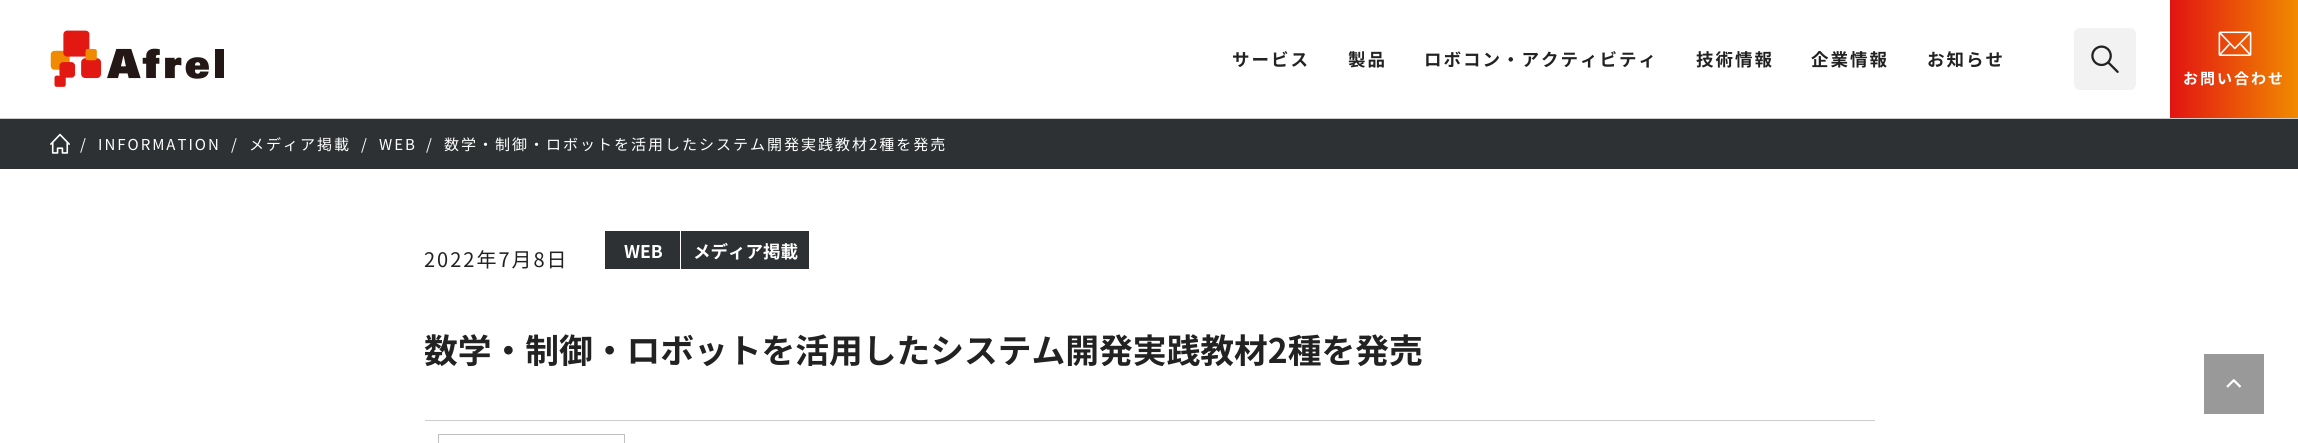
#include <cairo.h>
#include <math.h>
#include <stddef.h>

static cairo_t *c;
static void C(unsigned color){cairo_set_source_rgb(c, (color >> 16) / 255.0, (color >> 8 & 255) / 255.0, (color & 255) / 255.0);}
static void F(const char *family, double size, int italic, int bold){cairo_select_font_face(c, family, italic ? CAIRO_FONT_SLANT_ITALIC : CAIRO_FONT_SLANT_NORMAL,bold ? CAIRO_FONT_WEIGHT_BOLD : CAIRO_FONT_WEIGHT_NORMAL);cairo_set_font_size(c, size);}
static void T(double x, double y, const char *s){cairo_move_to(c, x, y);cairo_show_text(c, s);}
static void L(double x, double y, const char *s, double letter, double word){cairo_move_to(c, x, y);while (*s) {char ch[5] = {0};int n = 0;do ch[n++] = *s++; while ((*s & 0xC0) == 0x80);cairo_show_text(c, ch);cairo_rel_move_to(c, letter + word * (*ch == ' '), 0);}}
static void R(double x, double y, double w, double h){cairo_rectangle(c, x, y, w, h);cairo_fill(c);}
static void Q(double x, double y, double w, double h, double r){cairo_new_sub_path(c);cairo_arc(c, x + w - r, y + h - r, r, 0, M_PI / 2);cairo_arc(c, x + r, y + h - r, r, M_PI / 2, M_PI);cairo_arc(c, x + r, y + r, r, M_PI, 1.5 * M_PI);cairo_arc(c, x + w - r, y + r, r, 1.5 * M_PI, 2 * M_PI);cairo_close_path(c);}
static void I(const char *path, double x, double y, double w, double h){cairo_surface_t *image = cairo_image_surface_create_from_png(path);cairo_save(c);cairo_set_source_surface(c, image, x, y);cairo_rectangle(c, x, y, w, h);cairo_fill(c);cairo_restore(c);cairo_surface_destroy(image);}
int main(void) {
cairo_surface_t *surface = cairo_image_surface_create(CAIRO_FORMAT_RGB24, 2298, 443);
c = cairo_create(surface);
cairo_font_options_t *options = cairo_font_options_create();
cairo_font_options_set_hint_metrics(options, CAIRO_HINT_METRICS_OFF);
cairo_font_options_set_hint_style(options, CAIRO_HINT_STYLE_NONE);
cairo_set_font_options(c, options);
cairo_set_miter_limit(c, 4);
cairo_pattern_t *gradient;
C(0xffffff);
cairo_paint(c);
C(0xcccccc);
R(0,118,2298,1);
I("1.png",50,30,174,57);
F("Noto Sans JP",17.5,0,1);
C(0x222222);
L(1232,66,"サービス",2,0);
L(1348,66,"製品",2,0);
L(1424,66,"ロボコン・アクティビティ",2,0);
L(1696,66,"技術情報",2,0);
L(1811,66,"企業情報",2,0);
L(1927,66,"お知らせ",2,0);
C(0xf2f2f2);
Q(2074,28,62,62,6);
cairo_fill(c);
I("2.png",2091,45,28,28);
gradient = cairo_pattern_create_linear(2170,59,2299,59);
cairo_pattern_add_color_stop_rgba(gradient,0,0.886,0.078,0.071,1);
cairo_pattern_add_color_stop_rgba(gradient,1,0.945,0.545,0,1);
cairo_set_source(c,gradient);
cairo_pattern_destroy(gradient);
R(2170,0,128,118);
I("3.png",2218,31,34,25);
F("Noto Sans JP",15,0,1);
C(0xffffff);
L(2183,84,"お問い合わせ",2,0);
C(0x2e3133);
R(0,119,2298,50);
I("4.png",50,133,20,21);
F("Noto Sans JP",15,0,0);
C(0xffffff);
L(80,150,"/",2,0);
L(98,150,"INFORMATION",2,0);
L(231,150,"/",2,0);
L(249,150,"メディア掲載",2,0);
L(361,150,"/",2,0);
L(379,150,"WEB",2,0);
L(426,150,"/",2,0);
L(444,150,"数学・制御・ロボットを活用したシステム開発実践教材2種を発売",2,0);
C(0xcccccc);
R(425,420,1450,1);
F("Noto Sans JP",20,0,0);
C(0x222222);
L(424,267,"2022年7月8日",2,0);
C(0x2e3133);
R(605,231,75,38);
F("Noto Sans JP",17.5,0,1);
C(0xffffff);
T(624,258,"WEB");
C(0x2e3133);
R(681,231,128,38);
C(0xffffff);
T(693,258,"メディア掲載");
F("Noto Sans JP",33.75,0,1);
C(0x222222);
T(424,363,"数学・制御・ロボットを活用したシステム開発実践教材2種を発売");
cairo_rectangle(c,438.5,434.5,186,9);
C(0xc0c0c0);
cairo_set_line_width(c,1);
cairo_stroke(c);
C(0x999999);
R(2204,354,60,60);
I("5.png",2226,379,16,9);
cairo_surface_write_to_png(surface, "o.png");
cairo_font_options_destroy(options);
cairo_destroy(c);
cairo_surface_destroy(surface);
return 0;
}
